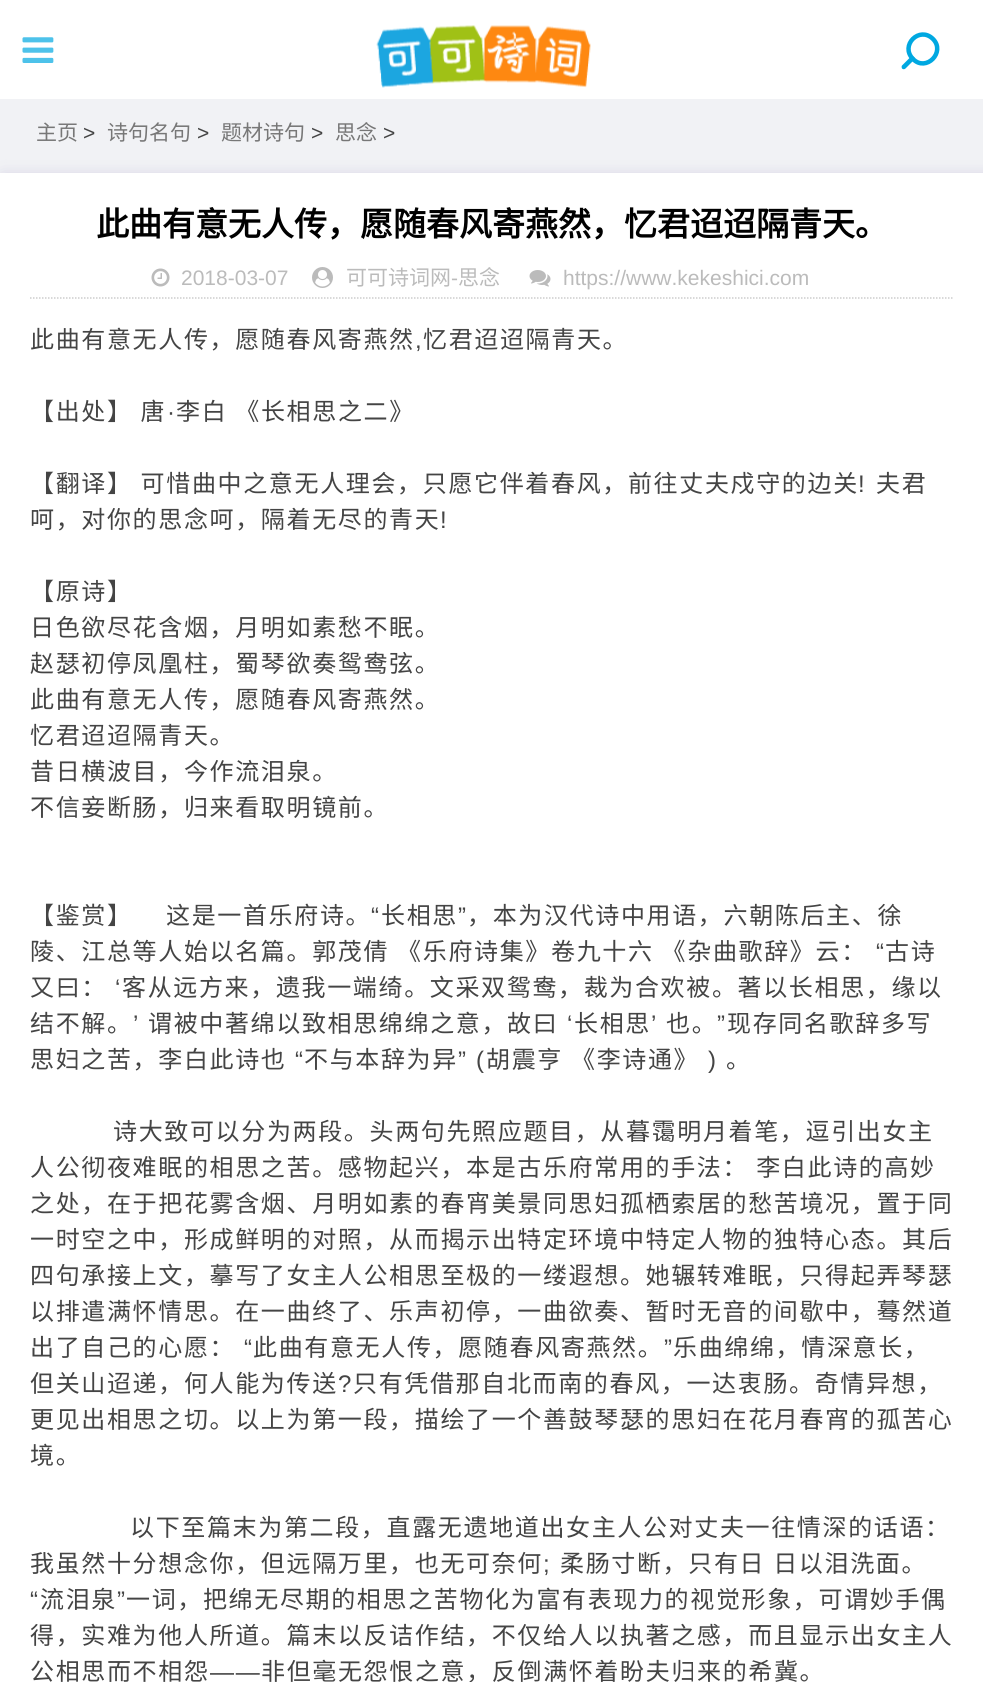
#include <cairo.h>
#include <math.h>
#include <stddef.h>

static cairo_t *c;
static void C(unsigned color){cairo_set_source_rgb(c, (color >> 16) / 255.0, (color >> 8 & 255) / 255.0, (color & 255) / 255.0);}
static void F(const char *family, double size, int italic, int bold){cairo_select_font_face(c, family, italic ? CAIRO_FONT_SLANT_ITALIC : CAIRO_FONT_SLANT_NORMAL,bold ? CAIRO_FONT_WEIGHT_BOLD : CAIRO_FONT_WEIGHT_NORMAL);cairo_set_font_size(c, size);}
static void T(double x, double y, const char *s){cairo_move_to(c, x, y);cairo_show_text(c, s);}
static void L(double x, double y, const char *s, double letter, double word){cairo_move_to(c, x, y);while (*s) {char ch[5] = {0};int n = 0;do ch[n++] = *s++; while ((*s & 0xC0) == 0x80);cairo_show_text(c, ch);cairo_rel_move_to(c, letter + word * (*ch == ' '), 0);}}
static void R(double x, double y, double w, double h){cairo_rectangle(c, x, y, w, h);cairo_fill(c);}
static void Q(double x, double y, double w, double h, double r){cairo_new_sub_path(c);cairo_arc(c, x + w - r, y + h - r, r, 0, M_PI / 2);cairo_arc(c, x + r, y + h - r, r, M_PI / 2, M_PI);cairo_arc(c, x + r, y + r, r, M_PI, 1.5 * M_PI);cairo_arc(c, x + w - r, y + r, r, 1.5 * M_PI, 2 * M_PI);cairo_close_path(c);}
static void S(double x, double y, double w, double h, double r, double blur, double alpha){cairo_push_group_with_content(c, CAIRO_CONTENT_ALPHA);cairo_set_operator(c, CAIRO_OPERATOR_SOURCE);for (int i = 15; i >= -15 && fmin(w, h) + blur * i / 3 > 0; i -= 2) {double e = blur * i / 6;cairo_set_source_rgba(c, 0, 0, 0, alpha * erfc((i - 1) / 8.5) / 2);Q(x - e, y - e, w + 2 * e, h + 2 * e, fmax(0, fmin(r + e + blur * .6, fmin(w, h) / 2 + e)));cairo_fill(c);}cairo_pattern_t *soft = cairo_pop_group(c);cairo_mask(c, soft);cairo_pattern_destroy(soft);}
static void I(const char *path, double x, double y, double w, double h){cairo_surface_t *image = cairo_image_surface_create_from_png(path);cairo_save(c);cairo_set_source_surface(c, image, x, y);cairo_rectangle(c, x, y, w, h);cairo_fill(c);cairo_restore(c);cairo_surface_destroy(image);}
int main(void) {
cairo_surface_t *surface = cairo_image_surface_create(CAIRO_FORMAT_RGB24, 983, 1682);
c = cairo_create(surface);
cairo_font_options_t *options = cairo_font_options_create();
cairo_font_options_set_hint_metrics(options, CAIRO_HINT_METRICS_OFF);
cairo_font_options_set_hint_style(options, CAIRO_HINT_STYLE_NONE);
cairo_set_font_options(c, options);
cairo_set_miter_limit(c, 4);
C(0xf1f2f5);
cairo_paint(c);
C(0xffffff);
R(0,0,983,99);
I("1.png",22,37,32,26);
I("2.png",376,25,215,63);
C(0x00a8e1);
cairo_new_path(c);
cairo_move_to(c,914,57);
cairo_curve_to(c,915,58,915,59,914,60);
cairo_line_to(c,905.5,68.5);
cairo_curve_to(c,904.5,69.5,903,69.5,902,68.5);
cairo_curve_to(c,901.5,67.5,901.5,66,902,65.5);
cairo_line_to(c,910.5,57);
cairo_curve_to(c,911.5,56,913,56,914,57);
cairo_close_path(c);
cairo_fill(c);
cairo_new_path(c);
cairo_move_to(c,933,39);
cairo_curve_to(c,946,52,926,72.5,913,59);
cairo_curve_to(c,899.5,45.5,919.5,25.5,933,39);
cairo_close_path(c);
cairo_set_line_width(c,4.5);
cairo_stroke(c);
F("Noto Sans CJK SC",21,0,0);
C(0x777777);
T(36,140,"主页");
F("Liberation Sans",21,0,0);
C(0x444444);
T(83,140,">");
F("Noto Sans CJK SC",21,0,0);
C(0x777777);
T(107,140,"诗句名句");
F("Liberation Sans",21,0,0);
C(0x444444);
T(197,140,">");
F("Noto Sans CJK SC",21,0,0);
C(0x777777);
T(221,140,"题材诗句");
F("Liberation Sans",21,0,0);
C(0x444444);
T(311,140,">");
F("Noto Sans CJK SC",21,0,0);
C(0x777777);
T(335,140,"思念");
F("Liberation Sans",21,0,0);
C(0x444444);
T(383,140,">");
C(0xcfcde0);
S(3,176,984,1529,0,7.5,1);
C(0xffffff);
R(0,173,983,1509);
F("Noto Sans CJK SC",33,0,1);
C(0x000000);
T(96,236,"此曲有意无人传，愿随春风寄燕然，忆君迢迢隔青天。");
cairo_new_path(c);
cairo_move_to(c,30,298);
cairo_line_to(c,954,298);
C(0xcccccc);
cairo_set_line_width(c,1.5);
cairo_set_dash(c,(double[]){1.5,1.5},2,0);
cairo_stroke(c);
I("3.png",151,268,19,19);
F("Liberation Sans",21,0,0);
C(0xbbbbbb);
T(181,285,"2018-03-07");
I("4.png",312,267,21,21);
F("Noto Sans CJK SC",21,0,0);
T(346,285,"可可诗词网");
F("Liberation Sans",21,0,0);
T(451,285,"-");
F("Noto Sans CJK SC",21,0,0);
T(458,285,"思念");
I("5.png",529,270,22,17);
F("Liberation Sans",21,0,0);
T(563,285,"https://www.kekeshici.com");
F("Noto Sans CJK SC",24,0,0);
C(0x444444);
L(30,348,"此曲有意无人传，愿随春风寄燕然",1.65,0);
F("Liberation Sans",24,0,0);
L(415,348,",",1.65,0);
F("Noto Sans CJK SC",24,0,0);
L(423,348,"忆君迢迢隔青天。",1.65,0);
L(30,420,"【出处】 唐",1.65,1);
F("Liberation Sans",24,0,0);
L(167,420,"·",1.65,0);
F("Noto Sans CJK SC",24,0,0);
L(176,420,"李白 《长相思之二》",1.65,1);
L(30,492,"【翻译】 可惜曲中之意无人理会，只愿它伴着春风，前往丈夫戍守的边关",1.65,1);
F("Liberation Sans",24,0,0);
L(858,492,"!",1.65,0);
F("Noto Sans CJK SC",24,0,0);
L(876,492,"夫君",1.65,0);
L(30,528,"呵，对你的思念呵，隔着无尽的青天",1.65,0);
F("Liberation Sans",24,0,0);
L(440,528,"!",1.65,0);
F("Noto Sans CJK SC",24,0,0);
L(30,600,"【原诗】",1.65,0);
L(30,636,"日色欲尽花含烟，月明如素愁不眠。",1.65,0);
L(30,672,"赵瑟初停凤凰柱，蜀琴欲奏鸳鸯弦。",1.65,0);
L(30,708,"此曲有意无人传，愿随春风寄燕然。",1.65,0);
L(30,744,"忆君迢迢隔青天。",1.65,0);
L(30,780,"昔日横波目，今作流泪泉。",1.65,0);
L(30,816,"不信妾断肠，归来看取明镜前。",1.65,0);
L(30,924,"【鉴赏】",1.65,0);
L(166,924,"这是一首乐府诗。",1.65,0);
F("Liberation Sans",24,0,0);
L(371,924,"“",1.65,0);
F("Noto Sans CJK SC",24,0,0);
L(381,924,"长相思",1.65,0);
F("Liberation Sans",24,0,0);
L(458,924,"”",1.65,0);
F("Noto Sans CJK SC",24,0,0);
L(467,924,"，本为汉代诗中用语，六朝陈后主、徐",1.65,0);
L(30,960,"陵、江总等人始以名篇。郭茂倩 《乐府诗集》卷九十六 《杂曲歌辞》云：",1.65,1);
F("Liberation Sans",24,0,0);
L(876,960,"“",1.65,0);
F("Noto Sans CJK SC",24,0,0);
L(885,960,"古诗",1.65,0);
L(30,996,"又曰：",1.65,0);
F("Liberation Sans",24,0,0);
L(115,996,"‘",1.65,0);
F("Noto Sans CJK SC",24,0,0);
L(122,996,"客从远方来，遗我一端绮。文采双鸳鸯，裁为合欢被。著以长相思，缘以",1.65,0);
L(30,1032,"结不解。",1.65,0);
F("Liberation Sans",24,0,0);
L(133,1032,"’",1.65,0);
F("Noto Sans CJK SC",24,0,0);
L(148,1032,"谓被中著绵以致相思绵绵之意，故曰",1.65,0);
F("Liberation Sans",24,0,0);
L(567,1032,"‘",1.65,0);
F("Noto Sans CJK SC",24,0,0);
L(574,1032,"长相思",1.65,0);
F("Liberation Sans",24,0,0);
L(651,1032,"’",1.65,0);
F("Noto Sans CJK SC",24,0,0);
L(666,1032,"也。",1.65,0);
F("Liberation Sans",24,0,0);
L(717,1032,"”",1.65,0);
F("Noto Sans CJK SC",24,0,0);
L(727,1032,"现存同名歌辞多写",1.65,0);
L(30,1068,"思妇之苦，李白此诗也",1.65,0);
F("Liberation Sans",24,0,0);
L(295,1068,"“",1.65,0);
F("Noto Sans CJK SC",24,0,0);
L(304,1068,"不与本辞为异",1.65,0);
F("Liberation Sans",24,0,0);
L(458,1068,"” (",1.65,0);
F("Noto Sans CJK SC",24,0,0);
L(486,1068,"胡震亨",1.65,0);
L(571,1068,"《李诗通》",1.65,0);
F("Liberation Sans",24,0,0);
L(708,1068,")",1.65,0);
F("Noto Sans CJK SC",24,0,0);
L(726,1068,"。",1.65,0);
L(113,1140,"诗大致可以分为两段。头两句先照应题目，从暮霭明月着笔，逗引出女主",1.65,0);
L(30,1176,"人公彻夜难眠的相思之苦。感物起兴，本是古乐府常用的手法： 李白此诗的高妙",1.65,1);
L(30,1212,"之处，在于把花雾含烟、月明如素的春宵美景同思妇孤栖索居的愁苦境况，置于同",1.65,0);
L(30,1248,"一时空之中，形成鲜明的对照，从而揭示出特定环境中特定人物的独特心态。其后",1.65,0);
L(30,1284,"四句承接上文，摹写了女主人公相思至极的一缕遐想。她辗转难眠，只得起弄琴瑟",1.65,0);
L(30,1320,"以排遣满怀情思。在一曲终了、乐声初停，一曲欲奏、暂时无音的间歇中，蓦然道",1.65,0);
L(30,1356,"出了自己的心愿：",1.65,0);
F("Liberation Sans",24,0,0);
L(244,1356,"“",1.65,0);
F("Noto Sans CJK SC",24,0,0);
L(253,1356,"此曲有意无人传，愿随春风寄燕然。",1.65,0);
F("Liberation Sans",24,0,0);
L(664,1356,"”",1.65,0);
F("Noto Sans CJK SC",24,0,0);
L(673,1356,"乐曲绵绵，情深意长，",1.65,0);
L(30,1392,"但关山迢递，何人能为传送",1.65,0);
F("Liberation Sans",24,0,0);
L(338,1392,"?",1.65,0);
F("Noto Sans CJK SC",24,0,0);
L(353,1392,"只有凭借那自北而南的春风，一达衷肠。奇情异想，",1.65,0);
L(30,1428,"更见出相思之切。以上为第一段，描绘了一个善鼓琴瑟的思妇在花月春宵的孤苦心",1.65,0);
L(30,1464,"境。",1.65,0);
L(130,1536,"以下至篇末为第二段，直露无遗地道出女主人公对丈夫一往情深的话语：",1.65,0);
L(30,1572,"我虽然十分想念你，但远隔万里，也无可奈何",1.65,0);
F("Liberation Sans",24,0,0);
L(543,1572,";",1.65,0);
F("Noto Sans CJK SC",24,0,0);
L(560,1572,"柔肠寸断，只有日 日以泪洗面。",1.65,1);
F("Liberation Sans",24,0,0);
L(30,1608,"“",1.65,0);
F("Noto Sans CJK SC",24,0,0);
L(40,1608,"流泪泉",1.65,0);
F("Liberation Sans",24,0,0);
L(117,1608,"”",1.65,0);
F("Noto Sans CJK SC",24,0,0);
L(126,1608,"一词，把绵无尽期的相思之苦物化为富有表现力的视觉形象，可谓妙手偶",1.65,0);
L(30,1644,"得，实难为他人所道。篇末以反诘作结，不仅给人以执著之感，而且显示出女主人",1.65,0);
L(30,1680,"公相思而不相怨",1.65,0);
F("Liberation Sans",24,0,0);
L(210,1680,"——",1.65,0);
F("Noto Sans CJK SC",24,0,0);
L(261,1680,"非但毫无怨恨之意，反倒满怀着盼夫归来的希冀。",1.65,0);
cairo_surface_write_to_png(surface, "o.png");
cairo_font_options_destroy(options);
cairo_destroy(c);
cairo_surface_destroy(surface);
return 0;
}
